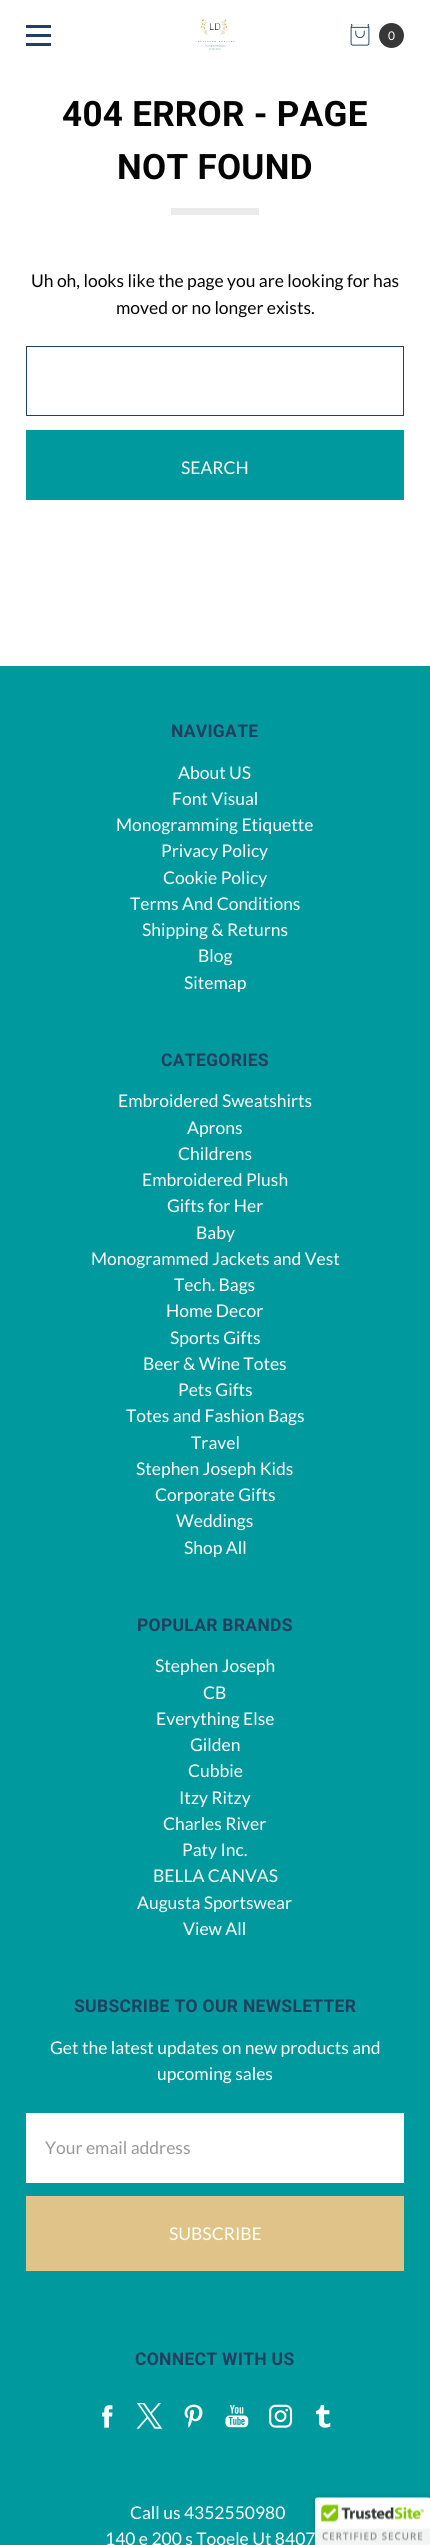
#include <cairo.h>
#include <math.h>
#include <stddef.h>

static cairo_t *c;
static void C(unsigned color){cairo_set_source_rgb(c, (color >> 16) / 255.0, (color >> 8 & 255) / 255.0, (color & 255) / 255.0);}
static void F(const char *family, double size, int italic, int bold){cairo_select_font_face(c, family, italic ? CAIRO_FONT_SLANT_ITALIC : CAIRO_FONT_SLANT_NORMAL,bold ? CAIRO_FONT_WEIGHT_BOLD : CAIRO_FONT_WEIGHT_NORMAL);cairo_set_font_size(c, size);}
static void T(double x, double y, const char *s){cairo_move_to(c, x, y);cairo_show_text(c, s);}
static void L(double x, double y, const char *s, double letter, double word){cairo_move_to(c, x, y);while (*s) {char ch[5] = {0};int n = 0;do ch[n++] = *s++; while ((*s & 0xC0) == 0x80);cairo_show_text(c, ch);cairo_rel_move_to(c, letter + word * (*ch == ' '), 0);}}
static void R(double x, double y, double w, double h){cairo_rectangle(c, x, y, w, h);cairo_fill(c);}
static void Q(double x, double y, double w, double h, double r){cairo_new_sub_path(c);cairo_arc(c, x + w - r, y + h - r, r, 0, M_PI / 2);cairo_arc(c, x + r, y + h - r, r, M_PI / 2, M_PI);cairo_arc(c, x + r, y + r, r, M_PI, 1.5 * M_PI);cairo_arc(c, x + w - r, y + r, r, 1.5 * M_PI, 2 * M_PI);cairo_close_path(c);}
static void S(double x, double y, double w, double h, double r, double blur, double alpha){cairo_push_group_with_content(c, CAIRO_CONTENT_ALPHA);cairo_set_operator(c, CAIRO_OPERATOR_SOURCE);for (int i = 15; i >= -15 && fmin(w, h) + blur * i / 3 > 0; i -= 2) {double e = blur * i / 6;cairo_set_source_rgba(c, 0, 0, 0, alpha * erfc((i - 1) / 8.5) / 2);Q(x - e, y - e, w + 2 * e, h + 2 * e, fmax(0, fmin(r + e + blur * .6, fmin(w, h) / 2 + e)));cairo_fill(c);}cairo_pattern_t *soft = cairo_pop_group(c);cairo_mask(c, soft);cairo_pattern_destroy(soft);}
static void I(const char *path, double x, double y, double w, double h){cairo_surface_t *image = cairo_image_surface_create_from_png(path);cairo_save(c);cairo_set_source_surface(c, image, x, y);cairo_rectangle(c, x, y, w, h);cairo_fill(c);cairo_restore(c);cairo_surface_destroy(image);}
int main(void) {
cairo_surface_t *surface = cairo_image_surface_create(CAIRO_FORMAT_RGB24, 430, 2545);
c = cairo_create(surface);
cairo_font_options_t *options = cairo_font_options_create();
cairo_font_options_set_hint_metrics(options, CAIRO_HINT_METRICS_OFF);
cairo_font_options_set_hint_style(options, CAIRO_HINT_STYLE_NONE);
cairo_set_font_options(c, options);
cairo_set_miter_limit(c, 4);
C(0xffffff);
cairo_paint(c);
C(0x21405f);
R(26,34,25,3);
R(26,25,25,3);
R(26,43,25,3);
I("1.png",195,19,40,31);
I("2.png",350,24,20,22);
C(0x373737);
cairo_arc(c,391.5,35.5,12.5,0,2 * M_PI);
cairo_fill(c);
F("Lato",12,0,0);
C(0xffffff);
T(388,40,"0");
F("Roboto",35,0,1);
C(0x050505);
L(62,126,"404 ERROR - PAGE",.3,0);
L(117,179,"NOT FOUND",.3,0);
C(0xebebeb);
R(171,208,88,7);
F("Lato",17.5,0,0);
C(0x050505);
T(31,287,"Uh oh, looks like the page you are looking for has");
T(116,314,"moved or no longer exists.");
cairo_rectangle(c,26.5,346.5,377,69);
C(0x21405f);
cairo_set_line_width(c,1);
cairo_stroke(c);
C(0x00999e);
R(26,430,378,70);
C(0xffffff);
T(181,474,"SEARCH");
C(0x00999e);
R(0,666,430,1879);
F("Roboto",17.5,0,1);
C(0x21405f);
L(171,737,"NAVIGATE",.3,0);
F("Lato",17.5,0,0);
C(0xffffff);
T(178,779,"About US");
T(172,805,"Font Visual");
T(116,831,"Monogramming Etiquette");
T(161,857,"Privacy Policy");
T(163,884,"Cookie Policy");
T(130,910,"Terms And Conditions");
T(142,936,"Shipping & Returns");
T(198,962,"Blog");
T(184,989,"Sitemap");
F("Roboto",17.5,0,1);
C(0x21405f);
L(161,1066,"CATEGORIES",.3,0);
F("Lato",17.5,0,0);
C(0xffffff);
T(118,1107,"Embroidered Sweatshirts");
T(187,1134,"Aprons");
T(178,1160,"Childrens");
T(142,1186,"Embroidered Plush");
T(167,1212,"Gifts for Her");
T(196,1239,"Baby");
T(91,1265,"Monogrammed Jackets and Vest");
T(174,1291,"Tech. Bags");
T(166,1317,"Home Decor");
T(170,1344,"Sports Gifts");
T(143,1370,"Beer & Wine Totes");
T(178,1396,"Pets Gifts");
T(126,1422,"Totes and Fashion Bags");
T(191,1449,"Travel");
T(136,1475,"Stephen Joseph Kids");
T(155,1501,"Corporate Gifts");
T(176,1527,"Weddings");
T(184,1554,"Shop All");
F("Roboto",17.5,0,1);
C(0x21405f);
L(137,1631,"POPULAR BRANDS",.3,0);
F("Lato",17.5,0,0);
C(0xffffff);
T(155,1672,"Stephen Joseph");
T(203,1699,"CB");
T(156,1725,"Everything Else");
T(190,1751,"Gilden");
T(188,1777,"Cubbie");
T(179,1804,"Itzy Ritzy");
T(163,1830,"Charles River");
T(182,1856,"Paty Inc.");
T(153,1882,"BELLA CANVAS");
T(137,1909,"Augusta Sportswear");
T(183,1935,"View All");
F("Roboto",17.5,0,1);
C(0x21405f);
L(74,2012,"SUBSCRIBE TO OUR NEWSLETTER",.3,0);
F("Lato",17.5,0,0);
C(0xffffff);
T(50,2054,"Get the latest updates on new products and");
T(157,2080,"upcoming sales");
R(26,2113,378,70);
C(0x999999);
T(45,2154,"Your email address");
C(0xe0c389);
R(26,2196,378,75);
C(0xffffff);
T(169,2240,"SUBSCRIBE");
F("Roboto",17.5,0,1);
C(0x21405f);
L(135,2365,"CONNECT WITH US",.3,0);
I("3.png",102,2405,11,23);
I("4.png",136,2403,27,26);
I("5.png",184,2404,19,24);
I("6.png",225,2405,24,23);
I("7.png",269,2404,24,24);
I("8.png",316,2404,15,24);
F("Lato",17.5,0,0);
C(0xffffff);
T(130,2519,"Call us 4352550980");
T(105,2545,"140 e 200 s Tooele Ut 8407");
C(0x000000);
S(315,2498,115,47,2.5,3,.2);
C(0xffffff);
cairo_new_path(c);
cairo_move_to(c,317.5,2498);
cairo_line_to(c,430,2498);
cairo_line_to(c,430,2545);
cairo_line_to(c,315,2545);
cairo_line_to(c,315,2500.5);
cairo_curve_to(c,315,2499,316,2498,317.5,2498);
cairo_close_path(c);
cairo_fill(c);
I("9.png",315,2497,115,48);
cairo_surface_write_to_png(surface, "o.png");
cairo_font_options_destroy(options);
cairo_destroy(c);
cairo_surface_destroy(surface);
return 0;
}
